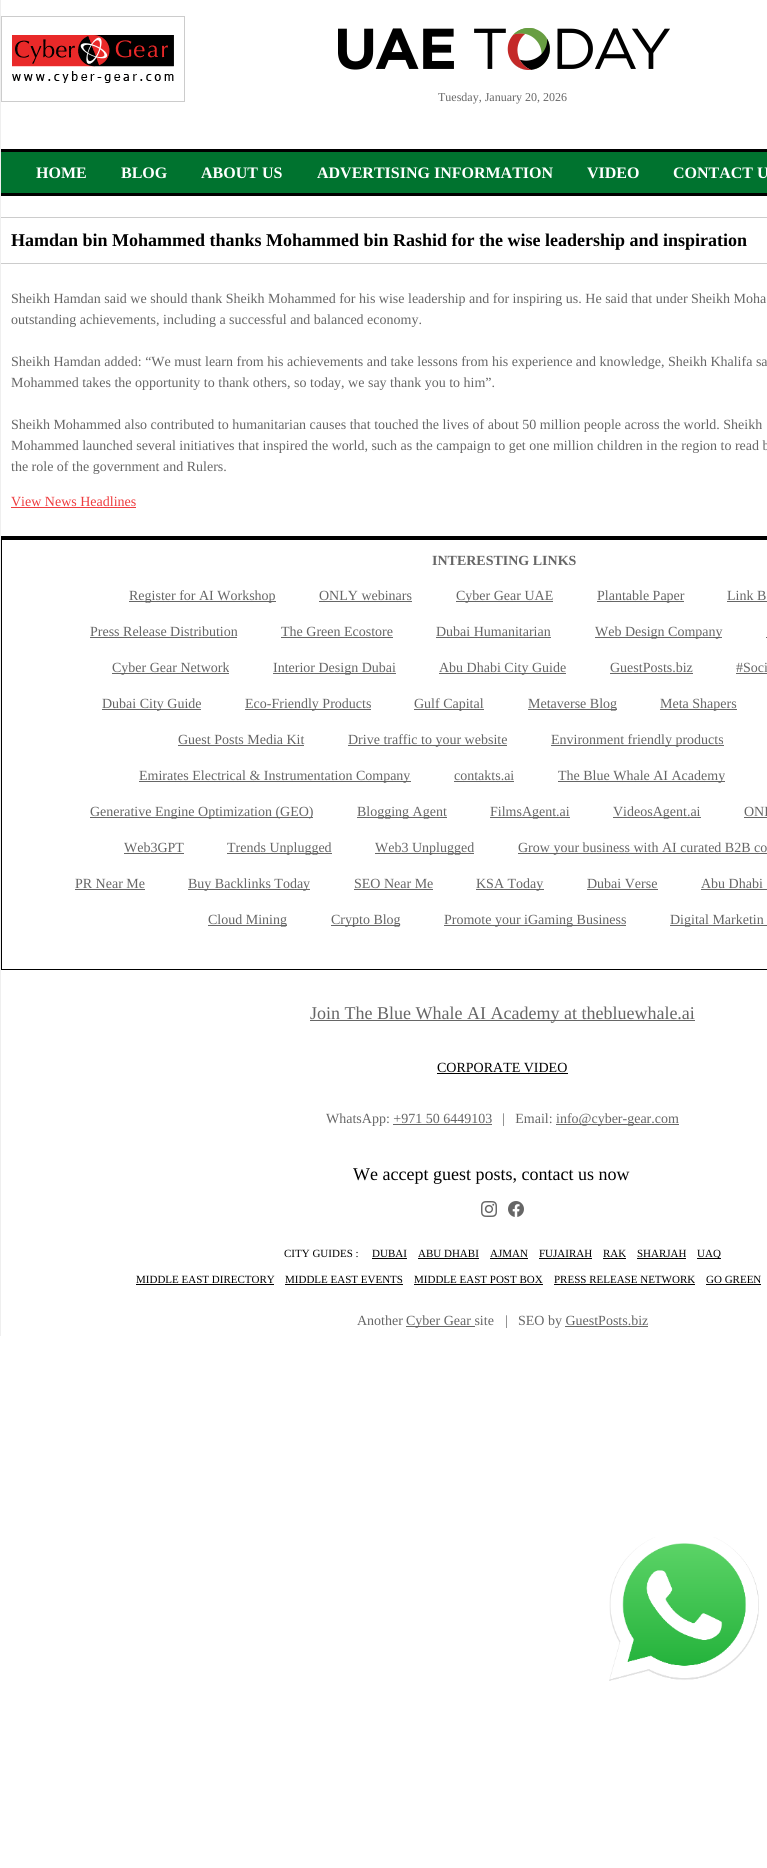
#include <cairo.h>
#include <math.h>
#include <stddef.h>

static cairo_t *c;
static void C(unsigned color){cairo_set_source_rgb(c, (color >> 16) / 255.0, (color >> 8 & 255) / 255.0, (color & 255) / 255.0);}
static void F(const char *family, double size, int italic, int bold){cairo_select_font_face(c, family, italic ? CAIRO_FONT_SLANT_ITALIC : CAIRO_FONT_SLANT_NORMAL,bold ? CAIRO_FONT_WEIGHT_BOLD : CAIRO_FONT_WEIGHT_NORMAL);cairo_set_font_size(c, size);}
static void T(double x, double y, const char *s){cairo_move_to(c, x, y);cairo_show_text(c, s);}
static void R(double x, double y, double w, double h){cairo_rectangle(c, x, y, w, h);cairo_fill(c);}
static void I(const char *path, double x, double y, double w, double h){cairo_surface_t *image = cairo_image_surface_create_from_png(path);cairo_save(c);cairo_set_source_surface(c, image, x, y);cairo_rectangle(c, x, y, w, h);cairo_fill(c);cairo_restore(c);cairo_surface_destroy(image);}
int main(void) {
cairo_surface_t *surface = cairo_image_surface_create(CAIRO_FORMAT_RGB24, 767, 1868);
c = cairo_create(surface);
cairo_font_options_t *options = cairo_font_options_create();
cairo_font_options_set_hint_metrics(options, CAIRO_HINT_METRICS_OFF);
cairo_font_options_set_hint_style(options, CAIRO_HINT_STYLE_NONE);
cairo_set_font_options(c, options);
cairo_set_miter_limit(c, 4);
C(0xffffff);
cairo_paint(c);
C(0xefefef);
R(0,0,1,1336);
I("1.png",1,16,184,86);
I("2.png",338,28,332,42);
F("Liberation Serif",12,0,0);
C(0x666666);
T(438,101,"Tuesday, January 20, 2026");
C(0x000000);
R(1,149,766,3);
C(0x00732f);
R(1,152,766,41);
C(0x000000);
R(1,193,766,3);
F("Liberation Serif",16,0,1);
C(0xffffff);
T(36,178,"HOME");
T(121,178,"BLOG");
T(201,178,"ABOUT US");
T(317,178,"ADVERTISING INFORMATION");
T(587,178,"VIDEO");
T(673,178,"CONTACT U");
C(0xcccccc);
R(1,217,766,1);
F("Liberation Serif",18,0,1);
C(0x000000);
T(11,246,"Hamdan bin Mohammed thanks Mohammed bin Rashid for the wise leadership and inspiration");
C(0xcccccc);
R(1,263,766,1);
F("Liberation Serif",14,0,0);
C(0x666666);
T(11,303,"Sheikh Hamdan said we should thank Sheikh Mohammed for his wise leadership and for inspiring us. He said that under Sheikh Moha");
T(11,324,"outstanding achievements, including a successful and balanced economy.");
T(11,366,"Sheikh Hamdan added: “We must learn from his achievements and take lessons from his experience and knowledge, Sheikh Khalifa sa");
T(11,387,"Mohammed takes the opportunity to thank others, so today, we say thank you to him”.");
T(11,429,"Sheikh Mohammed also contributed to humanitarian causes that touched the lives of about 50 million people across the world. Sheikh");
T(11,450,"Mohammed launched several initiatives that inspired the world, such as the campaign to get one million children in the region to read b");
T(11,471,"the role of the government and Rulers.");
C(0xee3b3e);
T(11,506,"View News Headlines");
R(11,507,125,1);
C(0x000000);
R(1,536,766,3);
cairo_rectangle(c,1.5,539.5,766,430);
cairo_set_line_width(c,1);
cairo_stroke(c);
F("Liberation Serif",14,0,1);
C(0x666666);
T(432,565,"INTERESTING LINKS");
R(129,601,147,1);
F("Liberation Serif",14,0,0);
T(129,600,"Register for AI Workshop");
T(319,600,"ONLY webinars");
R(319,601,93,1);
R(456,601,97,1);
T(456,600,"Cyber Gear UAE");
R(597,601,87,1);
T(597,600,"Plantable Paper");
T(727,600,"Link B");
R(727,601,40,1);
T(90,636,"Press Release Distribution");
R(90,637,147,1);
T(281,636,"The Green Ecostore");
R(281,637,112,1);
T(436,636,"Dubai Humanitarian");
R(436,637,115,1);
R(595,637,127,1);
T(595,636,"Web Design Company");
R(766,637,1,1);
R(112,673,117,1);
T(112,672,"Cyber Gear Network");
R(273,673,123,1);
T(273,672,"Interior Design Dubai");
R(439,673,127,1);
T(439,672,"Abu Dhabi City Guide");
T(610,672,"GuestPosts.biz");
R(610,673,83,1);
T(736,672,"#Soci");
R(736,673,31,1);
R(102,709,99,1);
T(102,708,"Dubai City Guide");
R(245,709,126,1);
T(245,708,"Eco-Friendly Products");
R(414,709,70,1);
T(414,708,"Gulf Capital");
R(528,709,89,1);
T(528,708,"Metaverse Blog");
R(660,709,77,1);
T(660,708,"Meta Shapers");
T(178,744,"Guest Posts Media Kit");
R(178,745,126,1);
R(348,745,159,1);
T(348,744,"Drive traffic to your website");
R(551,745,173,1);
T(551,744,"Environment friendly products");
R(139,781,272,1);
T(139,780,"Emirates Electrical & Instrumentation Company");
T(454,780,"contakts.ai");
R(454,781,60,1);
R(558,781,167,1);
T(558,780,"The Blue Whale AI Academy");
R(90,817,223,1);
T(90,816,"Generative Engine Optimization (GEO)");
R(357,817,90,1);
T(357,816,"Blogging Agent");
R(490,817,80,1);
T(490,816,"FilmsAgent.ai");
R(613,817,88,1);
T(613,816,"VideosAgent.ai");
T(744,816,"ONL");
R(744,817,23,1);
T(124,852,"Web3GPT");
R(124,853,60,1);
R(227,853,105,1);
T(227,852,"Trends Unplugged");
R(375,853,99,1);
T(375,852,"Web3 Unplugged");
R(518,853,249,1);
T(518,852,"Grow your business with AI curated B2B co");
T(75,888,"PR Near Me");
R(75,889,70,1);
R(188,889,122,1);
T(188,888,"Buy Backlinks Today");
T(354,888,"SEO Near Me");
R(354,889,79,1);
R(476,889,68,1);
T(476,888,"KSA Today");
T(587,888,"Dubai Verse");
R(587,889,71,1);
T(701,888,"Abu Dhabi");
R(701,889,66,1);
R(208,925,79,1);
T(208,924,"Cloud Mining");
R(331,925,69,1);
T(331,924,"Crypto Blog");
R(444,925,182,1);
T(444,924,"Promote your iGaming Business");
R(670,925,97,1);
T(670,924,"Digital Marketin");
R(310,1020,385,1);
F("Liberation Serif",18,0,0);
T(310,1019,"Join The Blue Whale AI Academy at thebluewhale.ai");
F("Liberation Serif",14,0,0);
C(0x000000);
T(437,1072,"CORPORATE VIDEO");
R(437,1073,131,1);
C(0x666666);
T(326,1123,"WhatsApp: +971 50 6449103");
T(502,1123,"|   Email:");
R(556,1124,123,1);
T(556,1123,"info@cyber-gear.com");
R(393,1124,99,1);
F("Liberation Serif",18,0,0);
C(0x000000);
T(353,1180,"We accept guest posts, contact us now");
I("3.png",481,1201,16,16);
I("4.png",508,1201,16,16);
F("Liberation Serif",11,0,0);
T(284,1257,"CITY GUIDES :");
T(372,1257,"DUBAI");
R(372,1258,35,1);
T(418,1257,"ABU DHABI");
R(418,1258,61,1);
T(490,1257,"AJMAN");
R(490,1258,38,1);
T(539,1257,"FUJAIRAH");
R(539,1258,53,1);
T(603,1257,"RAK");
R(603,1258,23,1);
T(637,1257,"SHARJAH");
R(637,1258,49,1);
R(697,1258,24,1);
T(697,1257,"UAQ");
T(136,1283,"MIDDLE EAST DIRECTORY");
R(136,1284,138,1);
T(285,1283,"MIDDLE EAST EVENTS");
R(285,1284,118,1);
T(414,1283,"MIDDLE EAST POST BOX");
R(414,1284,129,1);
T(554,1283,"PRESS RELEASE NETWORK");
R(554,1284,141,1);
T(706,1283,"GO GREEN");
R(706,1284,55,1);
F("Liberation Serif",14,0,0);
C(0x666666);
T(357,1325,"Another");
R(406,1326,69,1);
T(406,1325,"Cyber Gear site");
T(505,1325,"|");
T(518,1325,"SEO by GuestPosts.biz");
R(565,1326,83,1);
I("5.png",609,1537,150,144);
cairo_surface_write_to_png(surface, "o.png");
cairo_font_options_destroy(options);
cairo_destroy(c);
cairo_surface_destroy(surface);
return 0;
}
